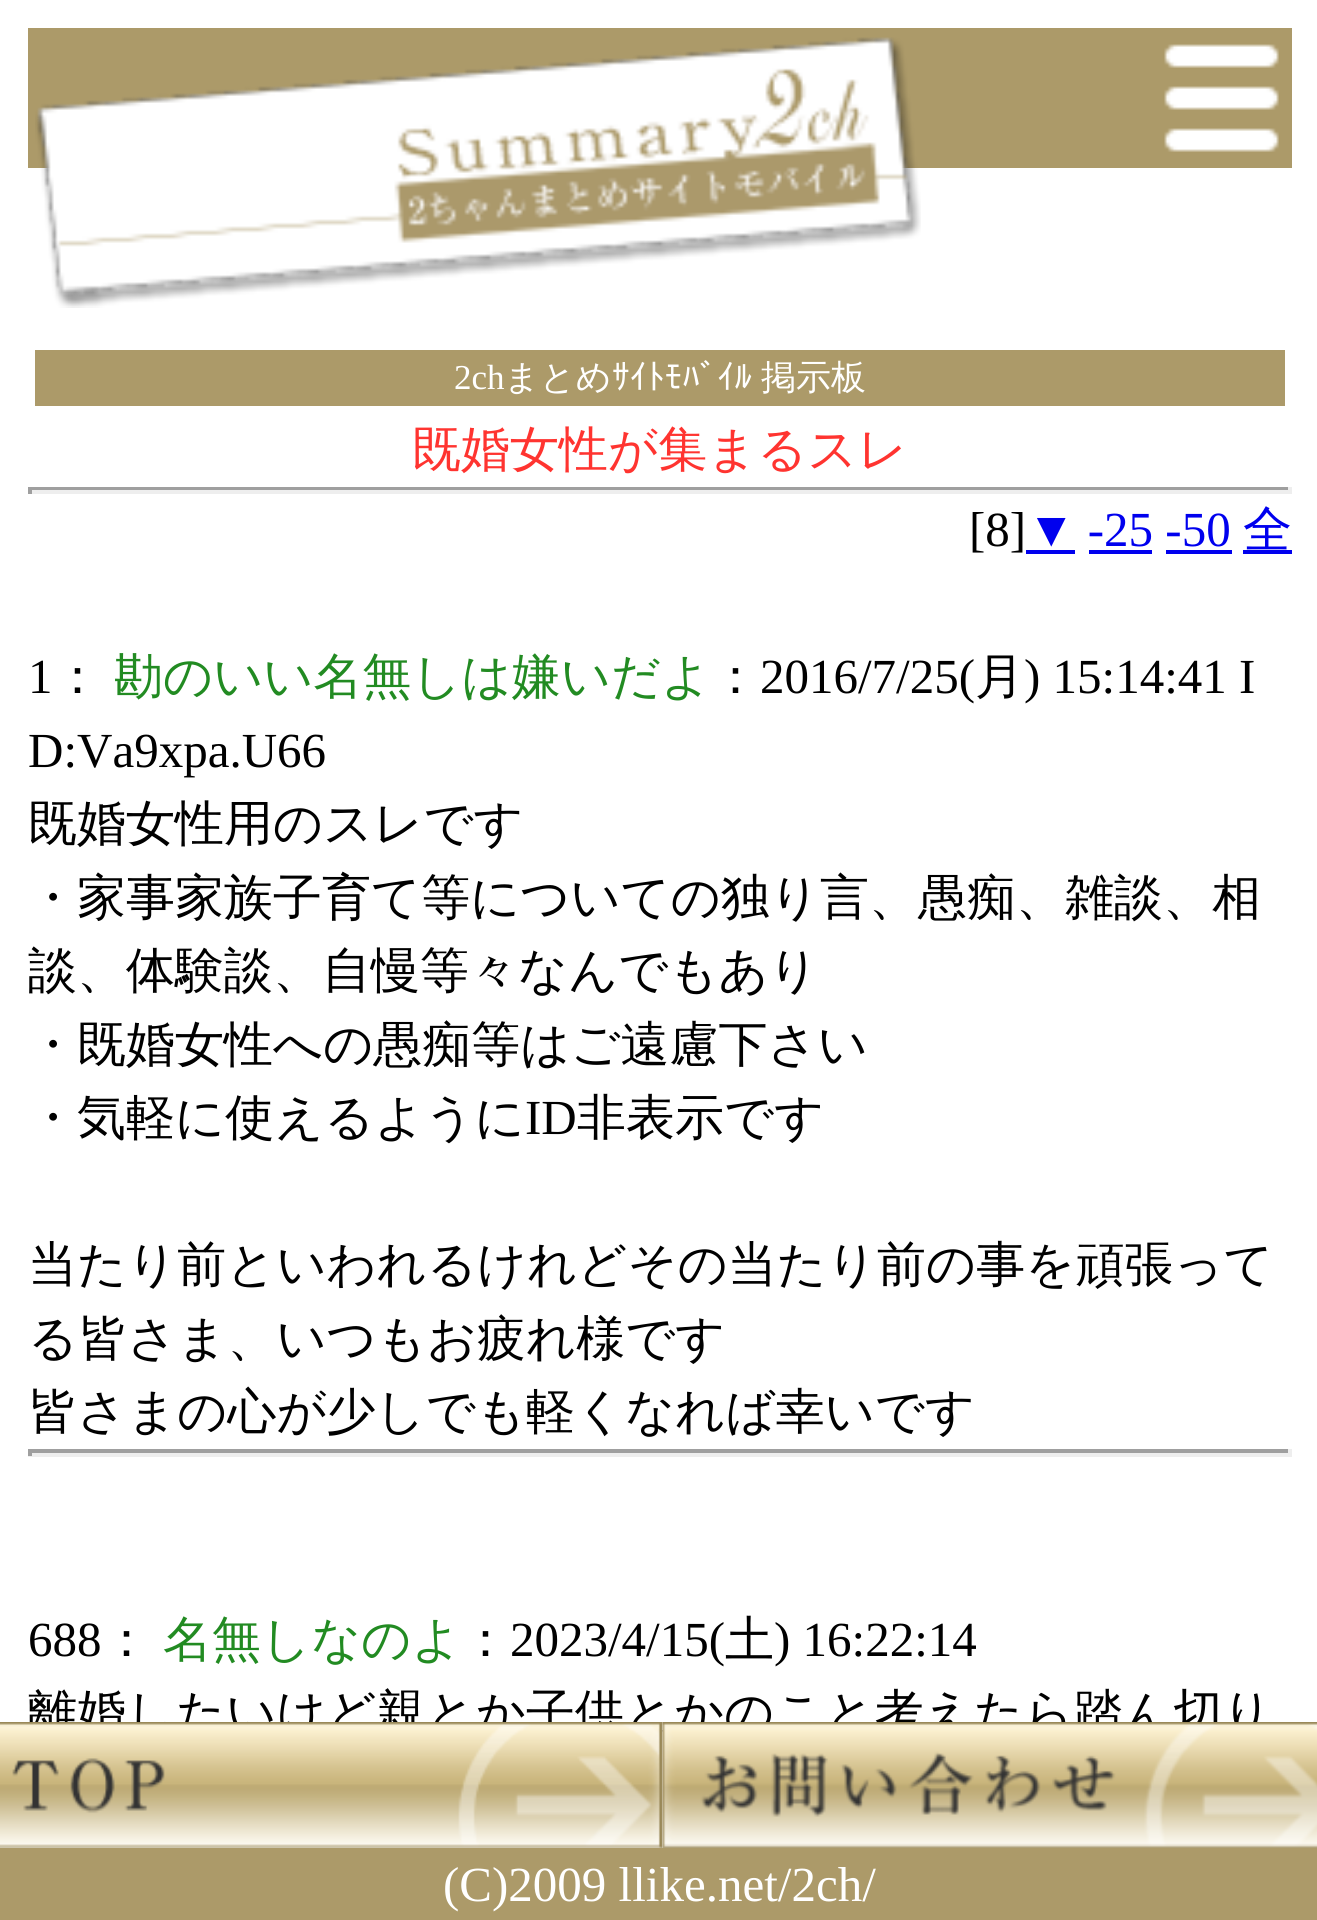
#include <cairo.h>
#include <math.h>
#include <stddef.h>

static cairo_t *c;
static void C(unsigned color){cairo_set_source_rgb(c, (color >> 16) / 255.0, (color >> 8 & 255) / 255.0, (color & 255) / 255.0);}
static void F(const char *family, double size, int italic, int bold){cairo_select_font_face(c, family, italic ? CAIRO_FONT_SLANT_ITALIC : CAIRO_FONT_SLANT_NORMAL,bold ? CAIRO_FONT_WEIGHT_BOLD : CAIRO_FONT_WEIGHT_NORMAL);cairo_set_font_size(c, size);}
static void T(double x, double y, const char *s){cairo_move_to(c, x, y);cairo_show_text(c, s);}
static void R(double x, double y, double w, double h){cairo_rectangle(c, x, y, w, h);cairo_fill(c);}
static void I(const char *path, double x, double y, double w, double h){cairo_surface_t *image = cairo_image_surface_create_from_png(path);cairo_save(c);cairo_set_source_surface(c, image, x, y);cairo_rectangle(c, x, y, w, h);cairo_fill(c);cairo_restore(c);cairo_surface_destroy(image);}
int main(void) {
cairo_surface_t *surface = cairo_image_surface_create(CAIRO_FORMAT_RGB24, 1317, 1920);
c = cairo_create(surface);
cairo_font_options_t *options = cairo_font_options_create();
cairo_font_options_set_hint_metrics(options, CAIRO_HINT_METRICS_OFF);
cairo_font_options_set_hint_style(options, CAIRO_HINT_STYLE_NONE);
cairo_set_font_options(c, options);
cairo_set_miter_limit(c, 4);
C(0xffffff);
cairo_paint(c);
C(0xac9a69);
R(28,28,1264,140);
I("1.png",35,37,886,271);
I("2.png",1164,44,115,108);
R(35,350,1250,56);
F("Liberation Serif",35,0,0);
C(0xffffff);
T(454,389,"2ch");
F("WenQuanYi Zen Hei Medium",35,0,0);
T(504,389,"まとめ");
F("IPAGothic",35,0,0);
T(612,389,"ｻｲﾄﾓﾊﾞｲﾙ");
F("WenQuanYi Zen Hei Medium",35,0,0);
T(761,389,"掲示板");
F("WenQuanYi Zen Hei Medium",49,0,0);
C(0xff3430);
T(412,466,"既婚女性が集まるスレ");
C(0x9f9f9f);
R(28,487,1264,3);
C(0xeeeeee);
R(1288,487,4,7);
R(28,490,1264,4);
C(0x9f9f9f);
R(28,487,4,7);
F("Liberation Serif",49,0,0);
C(0x000000);
T(969,546,"[8]");
C(0x0000ee);
T(1027,546,"▼ -25 -50");
R(1026,550,49,4);
F("WenQuanYi Zen Hei Medium",49,0,0);
T(1243,546,"全");
R(1243,550,49,4);
R(1089,550,63,4);
R(1166,550,66,4);
F("Liberation Serif",49,0,0);
C(0x000000);
T(28,693,"1");
F("WenQuanYi Zen Hei Medium",49,0,0);
T(53,693,"：");
C(0x228b22);
T(114,693,"勘のいい名無しは嫌いだよ");
C(0x000000);
T(711,693,"：");
F("Liberation Serif",49,0,0);
T(760,693,"2016/7/25(");
F("WenQuanYi Zen Hei Medium",49,0,0);
T(975,693,"月");
F("Liberation Serif",49,0,0);
T(1024,693,") 15:14:41 I");
T(28,767,"D:Va9xpa.U66");
F("WenQuanYi Zen Hei Medium",49,0,0);
T(28,840,"既婚女性用のスレです");
T(28,914,"・家事家族子育て等についての独り言、愚痴、雑談、相");
T(28,987,"談、体験談、自慢等々なんでもあり");
T(28,1061,"・既婚女性への愚痴等はご遠慮下さい");
T(28,1134,"・気軽に使えるように");
F("Liberation Serif",49,0,0);
T(525,1134,"ID");
F("WenQuanYi Zen Hei Medium",49,0,0);
T(577,1134,"非表示です");
T(28,1281,"当たり前といわれるけれどその当たり前の事を頑張って");
T(28,1355,"る皆さま、いつもお疲れ様です");
T(28,1428,"皆さまの心が少しでも軽くなれば幸いです");
C(0x9f9f9f);
R(28,1449,1264,4);
C(0xeeeeee);
R(1288,1449,4,7);
R(28,1453,1264,4);
C(0x9f9f9f);
R(28,1449,4,7);
F("Liberation Serif",49,0,0);
C(0x000000);
T(28,1656,"688");
F("WenQuanYi Zen Hei Medium",49,0,0);
T(102,1656,"：");
C(0x228b22);
T(163,1656,"名無しなのよ");
C(0x000000);
T(461,1656,"：");
F("Liberation Serif",49,0,0);
T(510,1656,"2023/4/15(");
F("WenQuanYi Zen Hei Medium",49,0,0);
T(725,1656,"土");
F("Liberation Serif",49,0,0);
T(774,1656,") 16:22:14");
F("WenQuanYi Zen Hei Medium",49,0,0);
T(28,1729,"離婚したいけど親とか子供とかのこと考えたら踏ん切り");
I("3.png",0,1722,662,126);
I("4.png",659,1722,658,126);
C(0xac9a69);
R(0,1848,1317,72);
F("Liberation Serif",49,0,0);
C(0xffffff);
T(443,1901,"(C)2009 llike.net/2ch/");
cairo_surface_write_to_png(surface, "o.png");
cairo_font_options_destroy(options);
cairo_destroy(c);
cairo_surface_destroy(surface);
return 0;
}
